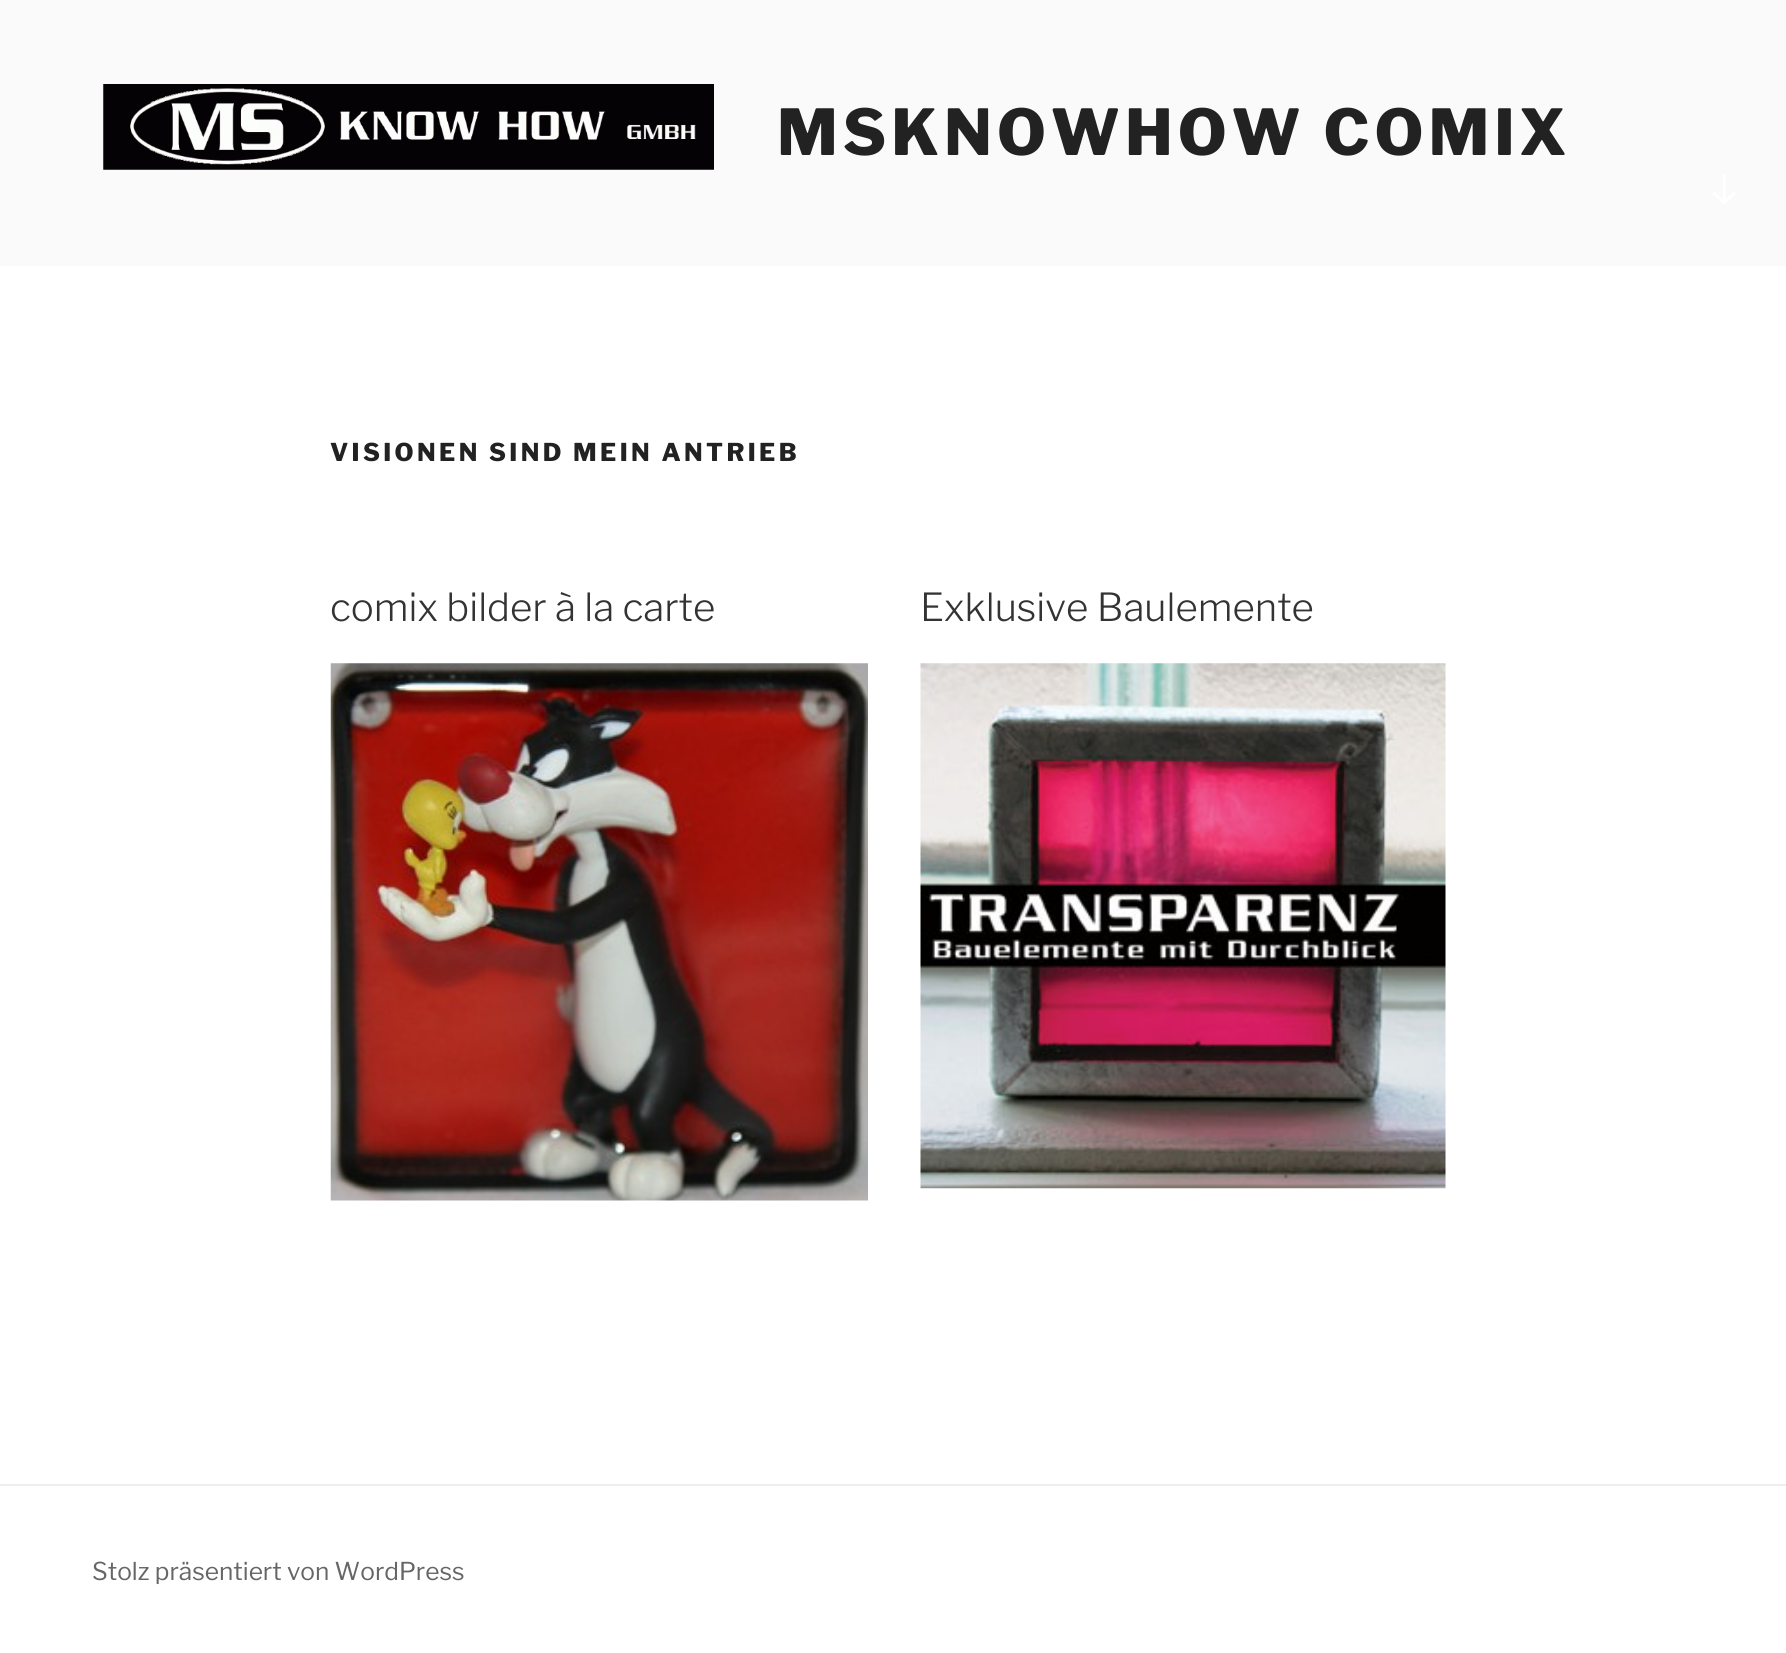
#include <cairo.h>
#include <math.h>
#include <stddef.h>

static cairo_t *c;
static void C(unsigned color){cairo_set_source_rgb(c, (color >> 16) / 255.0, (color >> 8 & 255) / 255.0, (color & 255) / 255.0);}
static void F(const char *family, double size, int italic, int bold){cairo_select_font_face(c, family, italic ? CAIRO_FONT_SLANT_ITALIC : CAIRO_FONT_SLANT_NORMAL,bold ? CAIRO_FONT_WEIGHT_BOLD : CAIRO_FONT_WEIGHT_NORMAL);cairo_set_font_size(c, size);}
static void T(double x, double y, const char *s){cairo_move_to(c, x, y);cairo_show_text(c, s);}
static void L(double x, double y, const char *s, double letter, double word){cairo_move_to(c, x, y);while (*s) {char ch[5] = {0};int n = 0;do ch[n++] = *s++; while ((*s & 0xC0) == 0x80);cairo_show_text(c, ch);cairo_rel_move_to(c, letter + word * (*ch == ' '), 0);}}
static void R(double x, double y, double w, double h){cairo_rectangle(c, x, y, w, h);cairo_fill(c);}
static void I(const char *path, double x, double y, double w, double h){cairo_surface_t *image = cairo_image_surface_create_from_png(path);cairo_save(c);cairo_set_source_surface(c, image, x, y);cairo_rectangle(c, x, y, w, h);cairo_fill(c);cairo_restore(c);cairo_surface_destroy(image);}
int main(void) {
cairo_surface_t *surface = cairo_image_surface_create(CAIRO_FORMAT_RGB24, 1786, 1653);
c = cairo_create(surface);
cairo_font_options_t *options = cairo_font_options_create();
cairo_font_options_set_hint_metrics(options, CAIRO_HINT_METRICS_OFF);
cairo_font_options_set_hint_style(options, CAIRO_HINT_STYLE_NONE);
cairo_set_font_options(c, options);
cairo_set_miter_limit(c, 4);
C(0xffffff);
cairo_paint(c);
C(0xfafafa);
R(0,0,1786,266);
I("1.png",103,84,611,86);
F("Libre Franklin ExtraBold",63,0,0);
C(0x222222);
L(777,155,"MSKNOWHOW COMIX",5,0);
I("2.png",1713,174,23,30);
F("Libre Franklin ExtraBold",24.5,0,0);
L(330,461,"VISIONEN SIND MEIN ANTRIEB",3.4,0);
F("Libre Franklin Light",38.5,0,0);
C(0x333333);
T(330,621,"comix bilder à la carte");
I("3.png",330,663,538,538);
T(920,621,"Exklusive Baulemente");
I("4.png",920,663,526,526);
C(0xeeeeee);
R(0,1484,1786,2);
F("Libre Franklin",24.5,0,0);
C(0x666666);
T(92,1580,"Stolz präsentiert von WordPress");
cairo_surface_write_to_png(surface, "o.png");
cairo_font_options_destroy(options);
cairo_destroy(c);
cairo_surface_destroy(surface);
return 0;
}
